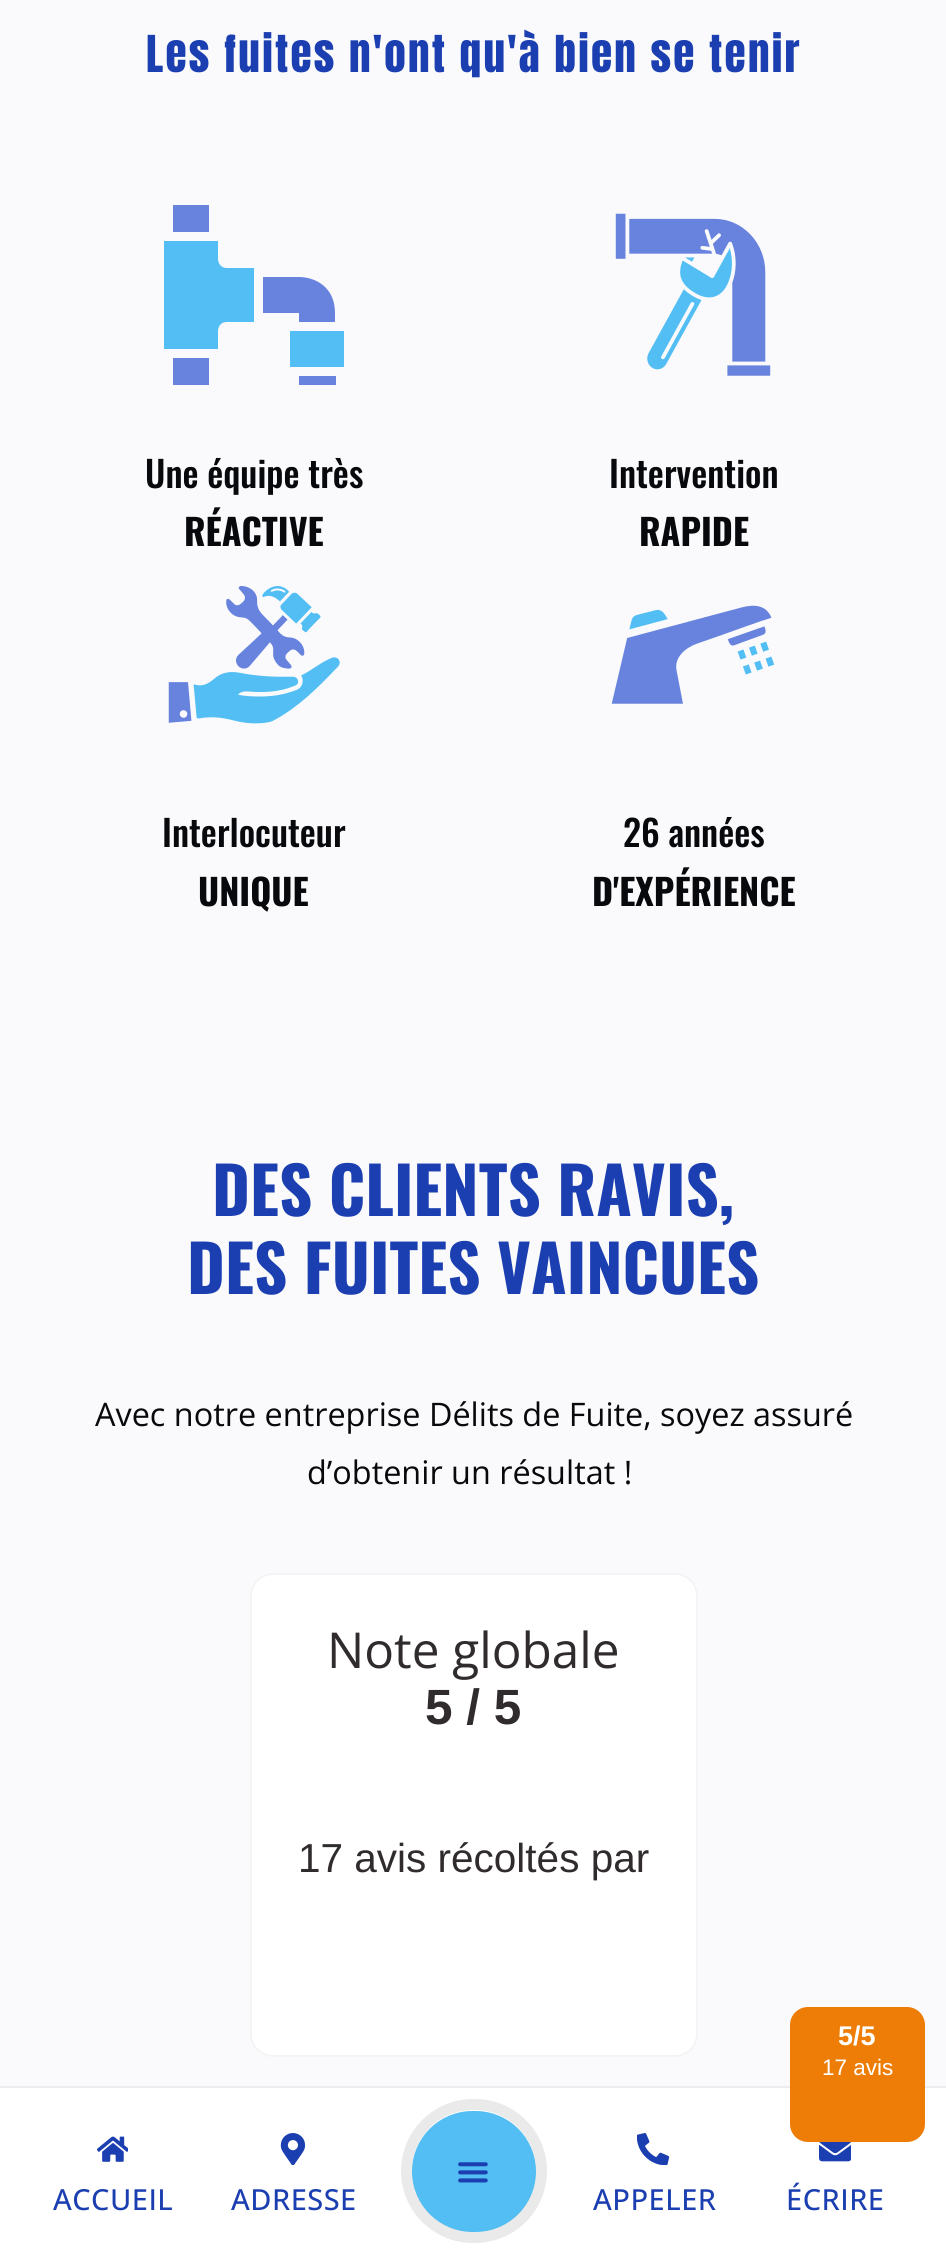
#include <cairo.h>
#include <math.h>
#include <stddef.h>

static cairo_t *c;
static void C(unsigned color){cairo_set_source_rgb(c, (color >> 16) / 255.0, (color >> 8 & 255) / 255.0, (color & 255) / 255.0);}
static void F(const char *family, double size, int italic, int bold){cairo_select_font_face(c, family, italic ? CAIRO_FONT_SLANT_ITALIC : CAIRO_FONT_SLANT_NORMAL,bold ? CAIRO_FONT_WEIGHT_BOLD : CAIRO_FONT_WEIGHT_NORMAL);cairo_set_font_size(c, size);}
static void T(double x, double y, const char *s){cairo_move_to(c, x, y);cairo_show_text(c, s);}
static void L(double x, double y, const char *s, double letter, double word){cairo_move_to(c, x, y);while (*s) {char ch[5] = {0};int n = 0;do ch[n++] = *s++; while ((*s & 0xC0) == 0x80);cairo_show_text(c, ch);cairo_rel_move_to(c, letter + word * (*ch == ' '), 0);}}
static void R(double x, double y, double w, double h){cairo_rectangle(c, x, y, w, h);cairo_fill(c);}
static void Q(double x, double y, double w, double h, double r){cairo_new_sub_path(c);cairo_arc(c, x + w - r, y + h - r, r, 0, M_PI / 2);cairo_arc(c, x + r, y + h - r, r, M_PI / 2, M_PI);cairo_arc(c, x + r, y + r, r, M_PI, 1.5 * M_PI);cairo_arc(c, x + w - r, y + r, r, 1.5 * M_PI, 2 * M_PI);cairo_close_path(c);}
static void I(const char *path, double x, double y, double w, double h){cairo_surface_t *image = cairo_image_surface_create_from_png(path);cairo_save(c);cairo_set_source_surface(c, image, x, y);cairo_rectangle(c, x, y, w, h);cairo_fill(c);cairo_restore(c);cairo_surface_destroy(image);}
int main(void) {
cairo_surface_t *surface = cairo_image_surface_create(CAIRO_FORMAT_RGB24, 946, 2254);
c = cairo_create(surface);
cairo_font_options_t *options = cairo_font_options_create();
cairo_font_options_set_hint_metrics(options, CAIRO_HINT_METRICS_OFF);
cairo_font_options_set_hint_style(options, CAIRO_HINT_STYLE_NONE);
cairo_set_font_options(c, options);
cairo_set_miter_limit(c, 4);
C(0xfafafc);
cairo_paint(c);
F("Anton",43.25,0,0);
C(0x1b3fb1);
L(146,72,"Les fuites n'ont qu'à bien se tenir",2.25,0);
C(0x52bef3);
cairo_set_fill_rule(c,CAIRO_FILL_RULE_EVEN_ODD);
cairo_new_path(c);
cairo_move_to(c,254,268);
cairo_line_to(c,227,268);
cairo_curve_to(c,218,268,218,259,218,259);
cairo_line_to(c,218,241);
cairo_line_to(c,164,241);
cairo_line_to(c,164,349);
cairo_line_to(c,218,349);
cairo_line_to(c,218,331);
cairo_curve_to(c,218,331,218,322,227,322);
cairo_line_to(c,254,322);
cairo_close_path(c);
cairo_move_to(c,290,331);
cairo_line_to(c,290,367);
cairo_line_to(c,344,367);
cairo_line_to(c,344,331);
cairo_close_path(c);
cairo_fill(c);
C(0x6783dd);
R(173,205,36,27);
R(173,358,36,27);
R(299,376,37,9);
cairo_new_path(c);
cairo_move_to(c,299,313);
cairo_line_to(c,263,313);
cairo_line_to(c,263,277);
cairo_line_to(c,299,277);
cairo_curve_to(c,314,277,335,286,335,313);
cairo_line_to(c,335,322);
cairo_line_to(c,299,322);
cairo_close_path(c);
cairo_fill(c);
F("Oswald Medium",36,0,0);
C(0x08090c);
T(145,488,"Une équipe très");
F("Oswald",36,0,1);
T(184,546,"RÉACTIVE");
I("1.png",615,213,156,163);
F("Oswald Medium",36,0,0);
T(609,488,"Intervention");
F("Oswald",36,0,1);
T(639,546,"RAPIDE");
I("2.png",168,586,172,138);
F("Oswald Medium",36,0,0);
T(162,847,"Interlocuteur");
F("Oswald",36,0,1);
T(198,906,"UNIQUE");
I("3.png",611,605,164,99);
F("Oswald Medium",36,0,0);
T(623,847,"26 années");
F("Oswald",36,0,1);
T(592,906,"D'EXPÉRIENCE");
F("Oswald",64.75,0,1);
C(0x1b3fb1);
T(212,1216,"DES CLIENTS RAVIS,");
T(187,1294,"DES FUITES VAINCUES");
F("Open Sans",32.4,0,0);
C(0x08090c);
T(95,1426,"Avec notre entreprise Délits de Fuite, soyez assuré");
T(307,1484,"d’obtenir un résultat !");
C(0xffffff);
Q(251,1574,446,482,22);
cairo_fill_preserve(c);
C(0xf4f4f4);
cairo_stroke(c);
F("Open Sans",49.5,0,0);
C(0x302c2e);
T(327,1668,"Note globale");
F("Liberation Sans",49.5,0,1);
T(425,1724,"5 / 5");
F("Liberation Sans",40.5,0,0);
T(298,1872,"17 avis récoltés par");
C(0xffffff);
R(0,2088,946,166);
C(0xededf0);
R(0,2086,946,2);
C(0xed7d06);
Q(791,2008,133,133,17);
cairo_fill_preserve(c);
cairo_stroke(c);
F("Liberation Sans",27,0,1);
C(0xffffff);
T(838,2045,"5/5");
F("Liberation Sans",22.5,0,0);
T(822,2075,"17 avis");
I("4.png",97,2136,31,26);
F("Open Sans Medium",29,0,0);
C(0x1b3fb1);
L(53,2210,"ACCUEIL",.5,0);
I("5.png",280,2133,26,32);
L(231,2210,"ADRESSE",.5,0);
C(0x52bef3);
Q(412,2111,124,121,60.5);
cairo_fill(c);
Q(406.5,2104.5,135,133,66.5);
cairo_set_source_rgba(c,0.588,0.588,0.588,0.2);
cairo_set_line_width(c,11);
cairo_stroke(c);
I("6.png",458,2162,30,21);
I("7.png",637,2133,33,32);
C(0x1b3fb1);
L(593,2210,"APPELER",.5,0);
I("8.png",819,2142,32,20);
L(786,2210,"ÉCRIRE",.5,0);
cairo_surface_write_to_png(surface, "o.png");
cairo_font_options_destroy(options);
cairo_destroy(c);
cairo_surface_destroy(surface);
return 0;
}
